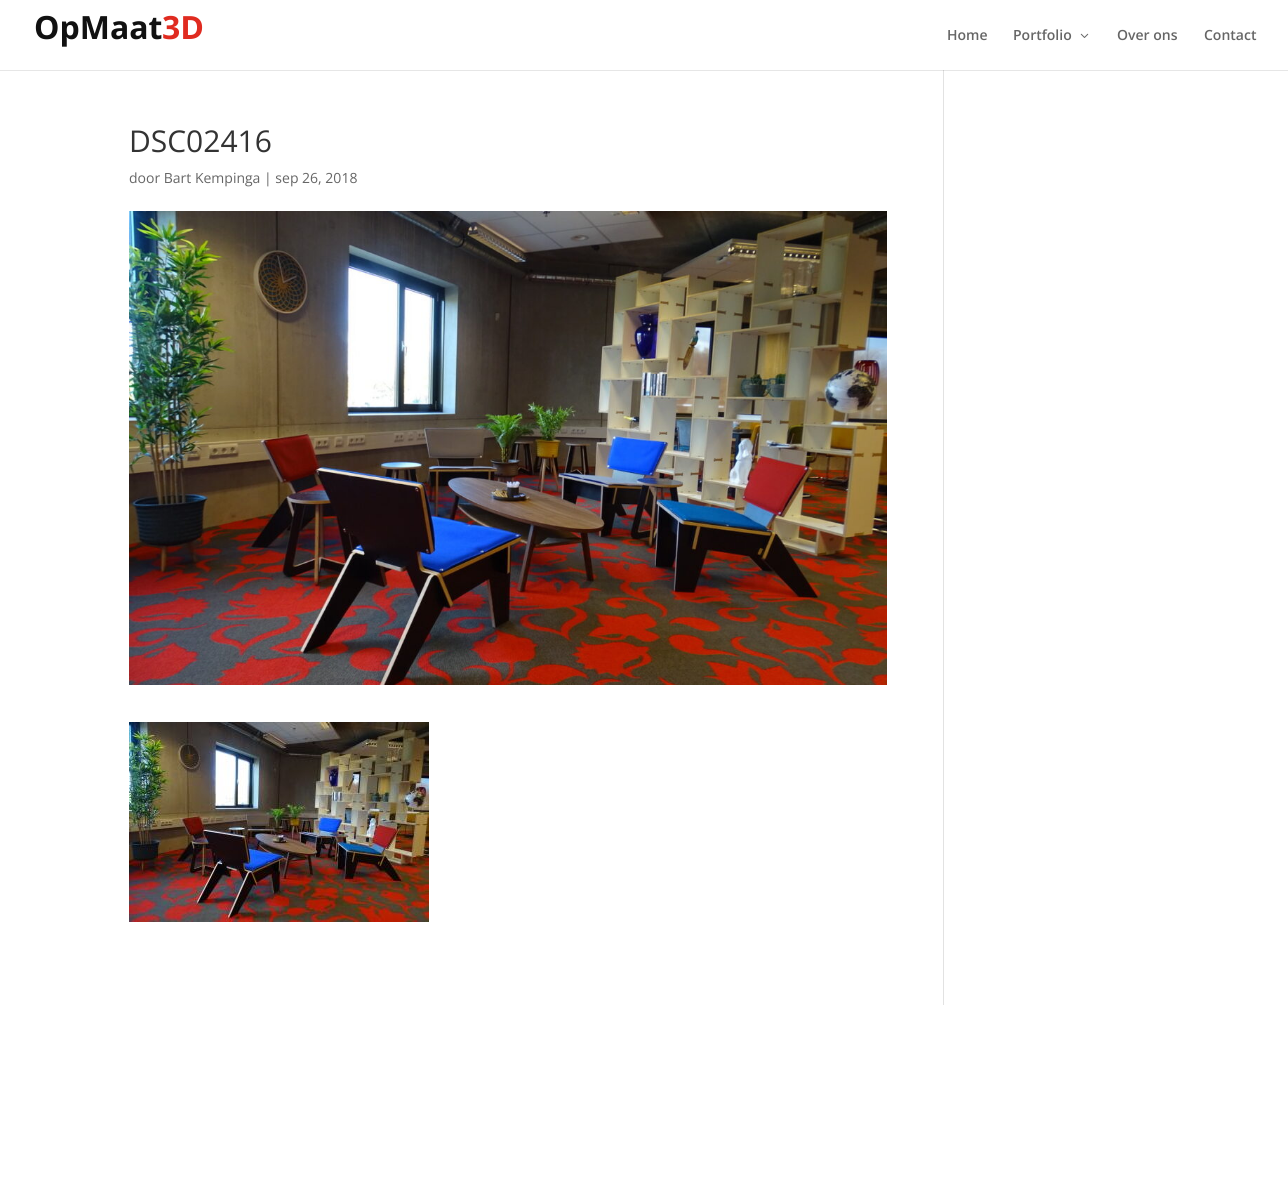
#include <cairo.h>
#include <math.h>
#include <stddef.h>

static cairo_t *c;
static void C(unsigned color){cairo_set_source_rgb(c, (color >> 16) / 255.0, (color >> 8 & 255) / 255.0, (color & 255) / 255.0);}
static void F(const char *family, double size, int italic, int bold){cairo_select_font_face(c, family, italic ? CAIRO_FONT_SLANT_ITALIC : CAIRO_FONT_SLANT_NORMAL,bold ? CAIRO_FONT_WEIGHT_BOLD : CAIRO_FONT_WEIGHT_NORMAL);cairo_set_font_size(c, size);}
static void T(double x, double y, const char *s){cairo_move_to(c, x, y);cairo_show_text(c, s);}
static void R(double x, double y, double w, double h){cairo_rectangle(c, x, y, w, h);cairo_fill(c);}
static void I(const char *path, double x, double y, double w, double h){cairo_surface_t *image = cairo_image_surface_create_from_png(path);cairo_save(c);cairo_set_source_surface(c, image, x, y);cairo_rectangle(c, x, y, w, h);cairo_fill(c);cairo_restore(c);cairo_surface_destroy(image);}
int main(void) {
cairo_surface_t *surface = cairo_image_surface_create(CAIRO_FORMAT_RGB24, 1288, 1182);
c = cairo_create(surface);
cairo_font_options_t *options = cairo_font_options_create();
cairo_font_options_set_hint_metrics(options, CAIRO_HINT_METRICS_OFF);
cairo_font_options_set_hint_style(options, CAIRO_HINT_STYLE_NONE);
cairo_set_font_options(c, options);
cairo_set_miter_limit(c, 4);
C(0xffffff);
cairo_paint(c);
C(0xe6e6e6);
R(0,70,1288,1);
C(0xe2e2e2);
R(943,68,1,937);
C(0xffffff);
R(943,68,1,2);
F("Open Sans",32,0,1);
C(0x111111);
T(34,39,"OpMaat");
C(0xe02b20);
T(162,39,"3D");
F("Open Sans SemiBold",14,0,0);
C(0x666666);
T(947,40,"Home");
T(1013,40,"Portfolio");
I("1.png",1080,33,9,5);
T(1117,40,"Over ons");
T(1204,40,"Contact");
F("Open Sans",30,0,0);
C(0x333333);
T(129,152,"DSC02416");
F("Open Sans",14,0,0);
C(0x666666);
T(129,183,"door Bart Kempinga | sep 26, 2018");
I("2.png",129,211,758,474);
I("3.png",129,722,300,200);
C(0xcbcbcb);
R(943,70,1,1);
cairo_surface_write_to_png(surface, "o.png");
cairo_font_options_destroy(options);
cairo_destroy(c);
cairo_surface_destroy(surface);
return 0;
}
